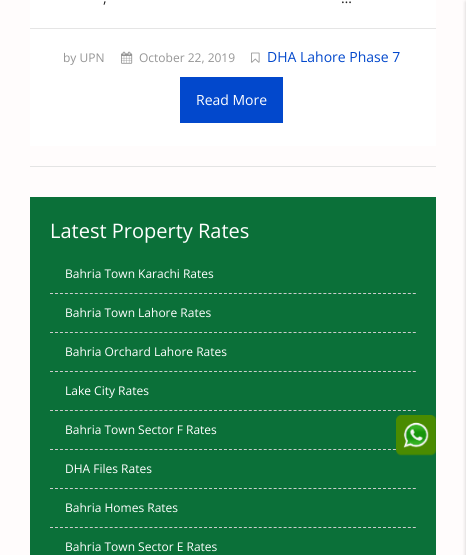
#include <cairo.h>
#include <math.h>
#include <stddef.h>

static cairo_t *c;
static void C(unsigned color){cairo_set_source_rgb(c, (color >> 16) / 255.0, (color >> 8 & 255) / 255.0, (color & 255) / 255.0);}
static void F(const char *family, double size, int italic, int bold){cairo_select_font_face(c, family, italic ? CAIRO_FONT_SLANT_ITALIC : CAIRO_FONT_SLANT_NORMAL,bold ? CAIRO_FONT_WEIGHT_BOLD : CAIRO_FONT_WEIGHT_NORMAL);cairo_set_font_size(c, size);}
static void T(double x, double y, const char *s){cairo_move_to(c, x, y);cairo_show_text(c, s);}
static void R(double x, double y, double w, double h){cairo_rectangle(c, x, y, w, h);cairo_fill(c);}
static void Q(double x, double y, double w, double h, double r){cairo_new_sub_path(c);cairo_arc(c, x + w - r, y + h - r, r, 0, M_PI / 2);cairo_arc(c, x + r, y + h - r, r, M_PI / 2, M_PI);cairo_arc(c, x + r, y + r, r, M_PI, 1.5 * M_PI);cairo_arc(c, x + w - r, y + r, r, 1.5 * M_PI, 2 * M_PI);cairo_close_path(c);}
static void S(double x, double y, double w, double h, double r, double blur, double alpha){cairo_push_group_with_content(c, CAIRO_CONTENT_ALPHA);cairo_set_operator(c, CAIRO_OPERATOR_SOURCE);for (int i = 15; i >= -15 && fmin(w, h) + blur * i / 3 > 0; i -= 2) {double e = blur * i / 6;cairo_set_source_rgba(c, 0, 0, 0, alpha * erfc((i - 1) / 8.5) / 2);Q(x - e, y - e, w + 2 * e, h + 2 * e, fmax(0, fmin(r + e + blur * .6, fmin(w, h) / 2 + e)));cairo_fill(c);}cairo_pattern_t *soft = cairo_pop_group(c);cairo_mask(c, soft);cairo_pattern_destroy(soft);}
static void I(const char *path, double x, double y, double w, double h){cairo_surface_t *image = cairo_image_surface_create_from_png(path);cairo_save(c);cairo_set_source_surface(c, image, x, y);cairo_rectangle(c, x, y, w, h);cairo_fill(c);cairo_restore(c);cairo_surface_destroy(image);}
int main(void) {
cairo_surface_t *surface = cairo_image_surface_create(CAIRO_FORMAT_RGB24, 466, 555);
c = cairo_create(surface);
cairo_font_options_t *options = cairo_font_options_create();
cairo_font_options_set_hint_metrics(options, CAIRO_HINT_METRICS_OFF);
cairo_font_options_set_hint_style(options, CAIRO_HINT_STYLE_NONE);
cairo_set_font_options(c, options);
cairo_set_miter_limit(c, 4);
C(0xfffcfc);
cairo_paint(c);
C(0xffffff);
R(30,0,406,28);
F("Open Sans",14,0,0);
C(0x222222);
T(103,3,",");
T(341,3,"…");
C(0xffffff);
R(30,29,406,117);
C(0xe5e5e5);
R(30,28,406,1);
F("Open Sans",12,0,0);
C(0x959595);
T(63,62,"by UPN");
I("1.png",121,51,12,13);
T(139,62,"October 22, 2019");
I("2.png",251,52,9,11);
F("Open Sans",14,0,0);
C(0x0248cc);
T(267,62,"DHA Lahore Phase 7");
R(180,77,103,46);
C(0xffffff);
T(196,105,"Read More");
C(0xe4e4e4);
R(30,166,406,1);
C(0x0b7039);
R(30,197,406,358);
F("Open Sans",20,0,0);
C(0xffffff);
T(50,238,"Latest Property Rates");
cairo_new_path(c);
cairo_move_to(c,50,293.5);
cairo_line_to(c,416,293.5);
C(0xcccccc);
cairo_set_line_width(c,1);
cairo_set_dash(c,(double[]){3,1.97},2,0);
cairo_stroke(c);
F("Open Sans",12,0,0);
C(0xffffff);
T(65,278,"Bahria Town Karachi Rates");
cairo_new_path(c);
cairo_move_to(c,50,332.5);
cairo_line_to(c,416,332.5);
C(0xcccccc);
cairo_stroke(c);
C(0xffffff);
T(65,317,"Bahria Town Lahore Rates");
cairo_new_path(c);
cairo_move_to(c,50,371.5);
cairo_line_to(c,416,371.5);
C(0xcccccc);
cairo_stroke(c);
C(0xffffff);
T(65,356,"Bahria Orchard Lahore Rates");
cairo_new_path(c);
cairo_move_to(c,50,410.5);
cairo_line_to(c,416,410.5);
C(0xcccccc);
cairo_stroke(c);
C(0xffffff);
T(65,395,"Lake City Rates");
cairo_new_path(c);
cairo_move_to(c,50,449.5);
cairo_line_to(c,416,449.5);
C(0xcccccc);
cairo_stroke(c);
C(0xffffff);
T(65,434,"Bahria Town Sector F Rates");
cairo_new_path(c);
cairo_move_to(c,50,488.5);
cairo_line_to(c,416,488.5);
C(0xcccccc);
cairo_stroke(c);
C(0xffffff);
T(65,473,"DHA Files Rates");
cairo_new_path(c);
cairo_move_to(c,50,527.5);
cairo_line_to(c,416,527.5);
C(0xcccccc);
cairo_stroke(c);
C(0xffffff);
T(65,512,"Bahria Homes Rates");
T(65,551,"Bahria Town Sector E Rates");
C(0x000000);
S(466,2,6,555,0,2,.2);
I("3.png",396,415,40,41);
cairo_surface_write_to_png(surface, "o.png");
cairo_font_options_destroy(options);
cairo_destroy(c);
cairo_surface_destroy(surface);
return 0;
}
